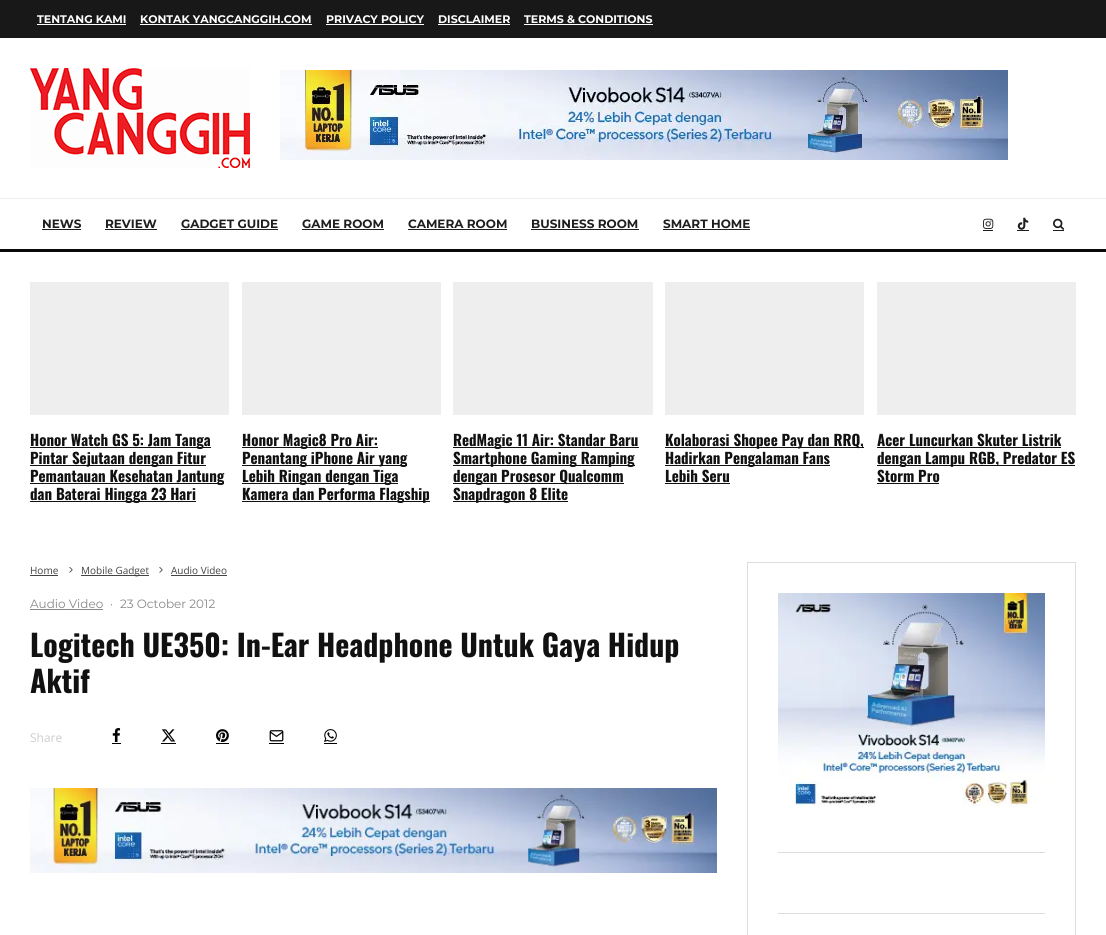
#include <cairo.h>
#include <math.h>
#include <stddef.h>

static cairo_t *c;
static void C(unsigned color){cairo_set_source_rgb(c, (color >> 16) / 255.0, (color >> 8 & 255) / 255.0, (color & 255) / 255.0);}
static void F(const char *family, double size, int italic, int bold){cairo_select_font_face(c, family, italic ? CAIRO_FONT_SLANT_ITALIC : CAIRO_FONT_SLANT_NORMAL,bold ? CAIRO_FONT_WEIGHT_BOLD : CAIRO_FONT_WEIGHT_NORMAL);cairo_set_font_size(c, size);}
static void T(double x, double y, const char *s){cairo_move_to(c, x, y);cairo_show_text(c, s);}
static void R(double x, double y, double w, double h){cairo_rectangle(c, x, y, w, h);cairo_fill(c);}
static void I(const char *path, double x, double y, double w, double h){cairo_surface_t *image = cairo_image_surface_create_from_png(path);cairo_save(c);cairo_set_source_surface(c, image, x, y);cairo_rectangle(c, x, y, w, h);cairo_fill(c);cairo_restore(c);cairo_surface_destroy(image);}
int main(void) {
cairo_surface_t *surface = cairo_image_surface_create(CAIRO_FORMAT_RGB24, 1106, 935);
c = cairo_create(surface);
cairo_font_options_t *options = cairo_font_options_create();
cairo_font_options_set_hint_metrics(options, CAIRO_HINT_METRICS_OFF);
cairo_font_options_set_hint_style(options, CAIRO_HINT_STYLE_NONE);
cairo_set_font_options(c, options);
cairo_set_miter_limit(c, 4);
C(0xffffff);
cairo_paint(c);
C(0x181818);
R(0,0,1106,38);
F("Montserrat",11,0,1);
C(0xffffff);
T(37,23,"TENTANG KAMI");
R(37,24,89,1);
T(140,23,"KONTAK YANGCANGGIH.COM");
R(140,24,172,1);
T(326,23,"PRIVACY POLICY");
R(326,24,98,1);
T(438,23,"DISCLAIMER");
R(438,24,72,1);
T(524,23,"TERMS & CONDITIONS");
R(524,24,129,1);
I("1.png",30,68,220,100);
I("2.png",280,70,728,90);
C(0xeeeeee);
R(0,198,1106,1);
C(0x0a0a0a);
R(0,249,1106,3);
F("Montserrat",12,0,1);
C(0x1e1e1e);
T(42,228,"NEWS");
R(42,229,39,1);
T(105,228,"REVIEW");
R(105,229,52,1);
T(181,228,"GADGET GUIDE");
R(181,229,97,1);
T(302,228,"GAME ROOM");
R(302,229,82,1);
T(408,228,"CAMERA ROOM");
R(408,229,99,1);
T(531,228,"BUSINESS ROOM");
R(531,229,108,1);
T(663,228,"SMART HOME");
R(663,229,87,1);
R(983,230,10,1);
I("3.png",983,218,11,11);
R(1017,230,12,1);
I("4.png",1017,217,12,13);
R(1053,230,11,1);
I("5.png",1053,218,12,12);
C(0xeeeeee);
R(30,282,199,133);
C(0x111111);
R(30,447,181,1);
F("Oswald",15,0,1);
T(30,446,"Honor Watch GS 5: Jam Tanga");
R(30,465,176,1);
T(30,464,"Pintar Sejutaan dengan Fitur");
R(30,483,194,1);
T(30,482,"Pemantauan Kesehatan Jantung");
R(30,501,166,1);
T(30,500,"dan Baterai Hingga 23 Hari");
C(0xeeeeee);
R(242,282,199,133);
C(0x111111);
R(242,447,136,1);
T(242,446,"Honor Magic8 Pro Air:");
R(242,465,165,1);
T(242,464,"Penantang iPhone Air yang");
R(242,483,156,1);
T(242,482,"Lebih Ringan dengan Tiga");
R(242,501,188,1);
T(242,500,"Kamera dan Performa Flagship");
C(0xeeeeee);
R(453,282,200,133);
C(0x111111);
R(453,447,186,1);
T(453,446,"RedMagic 11 Air: Standar Baru");
R(453,465,182,1);
T(453,464,"Smartphone Gaming Ramping");
R(453,483,171,1);
T(453,482,"dengan Prosesor Qualcomm");
R(453,501,115,1);
T(453,500,"Snapdragon 8 Elite");
C(0xeeeeee);
R(665,282,199,133);
C(0x111111);
R(665,447,199,1);
T(665,446,"Kolaborasi Shopee Pay dan RRQ,");
R(665,465,165,1);
T(665,464,"Hadirkan Pengalaman Fans");
T(665,482,"Lebih Seru");
R(665,483,65,1);
C(0xeeeeee);
R(877,282,199,133);
C(0x111111);
T(877,446,"Acer Luncurkan Skuter Listrik");
R(877,447,184,1);
R(877,465,198,1);
T(877,464,"dengan Lampu RGB, Predator ES");
T(877,482,"Storm Pro");
R(877,483,62,1);
F("Open Sans",10,0,0);
C(0x444444);
T(30,574,"Home");
R(30,575,28,1);
I("6.png",69,567,4,6);
R(81,575,68,1);
T(81,574,"Mobile Gadget");
I("6.png",159,567,4,6);
T(171,574,"Audio Video");
R(171,575,56,1);
F("Montserrat",12,0,0);
C(0x888888);
T(30,608,"Audio Video");
R(30,609,73,1);
T(110,608,"·");
T(120,608,"23 October 2012");
F("Oswald",30,0,1);
C(0x111111);
T(30,657,"Logitech UE350: In-Ear Headphone Untuk Gaya Hidup");
T(30,693,"Aktif");
F("Open Sans",12,0,0);
C(0xcccccc);
T(30,742,"Share");
I("7.png",112,728,9,14);
C(0x000000);
R(112,743,9,1);
I("8.png",161,729,15,13);
R(161,743,15,1);
I("9.png",216,729,13,13);
R(216,743,13,1);
I("10.png",269,730,15,12);
R(269,743,15,1);
I("11.png",324,729,13,13);
R(324,743,13,1);
I("12.png",30,788,687,85);
cairo_rectangle(c,747.5,562.5,328,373);
C(0xdddddd);
cairo_set_line_width(c,1);
cairo_stroke(c);
R(778,852,267,1);
I("13.png",778,593,267,214);
R(778,913,267,1);
cairo_surface_write_to_png(surface, "o.png");
cairo_font_options_destroy(options);
cairo_destroy(c);
cairo_surface_destroy(surface);
return 0;
}
